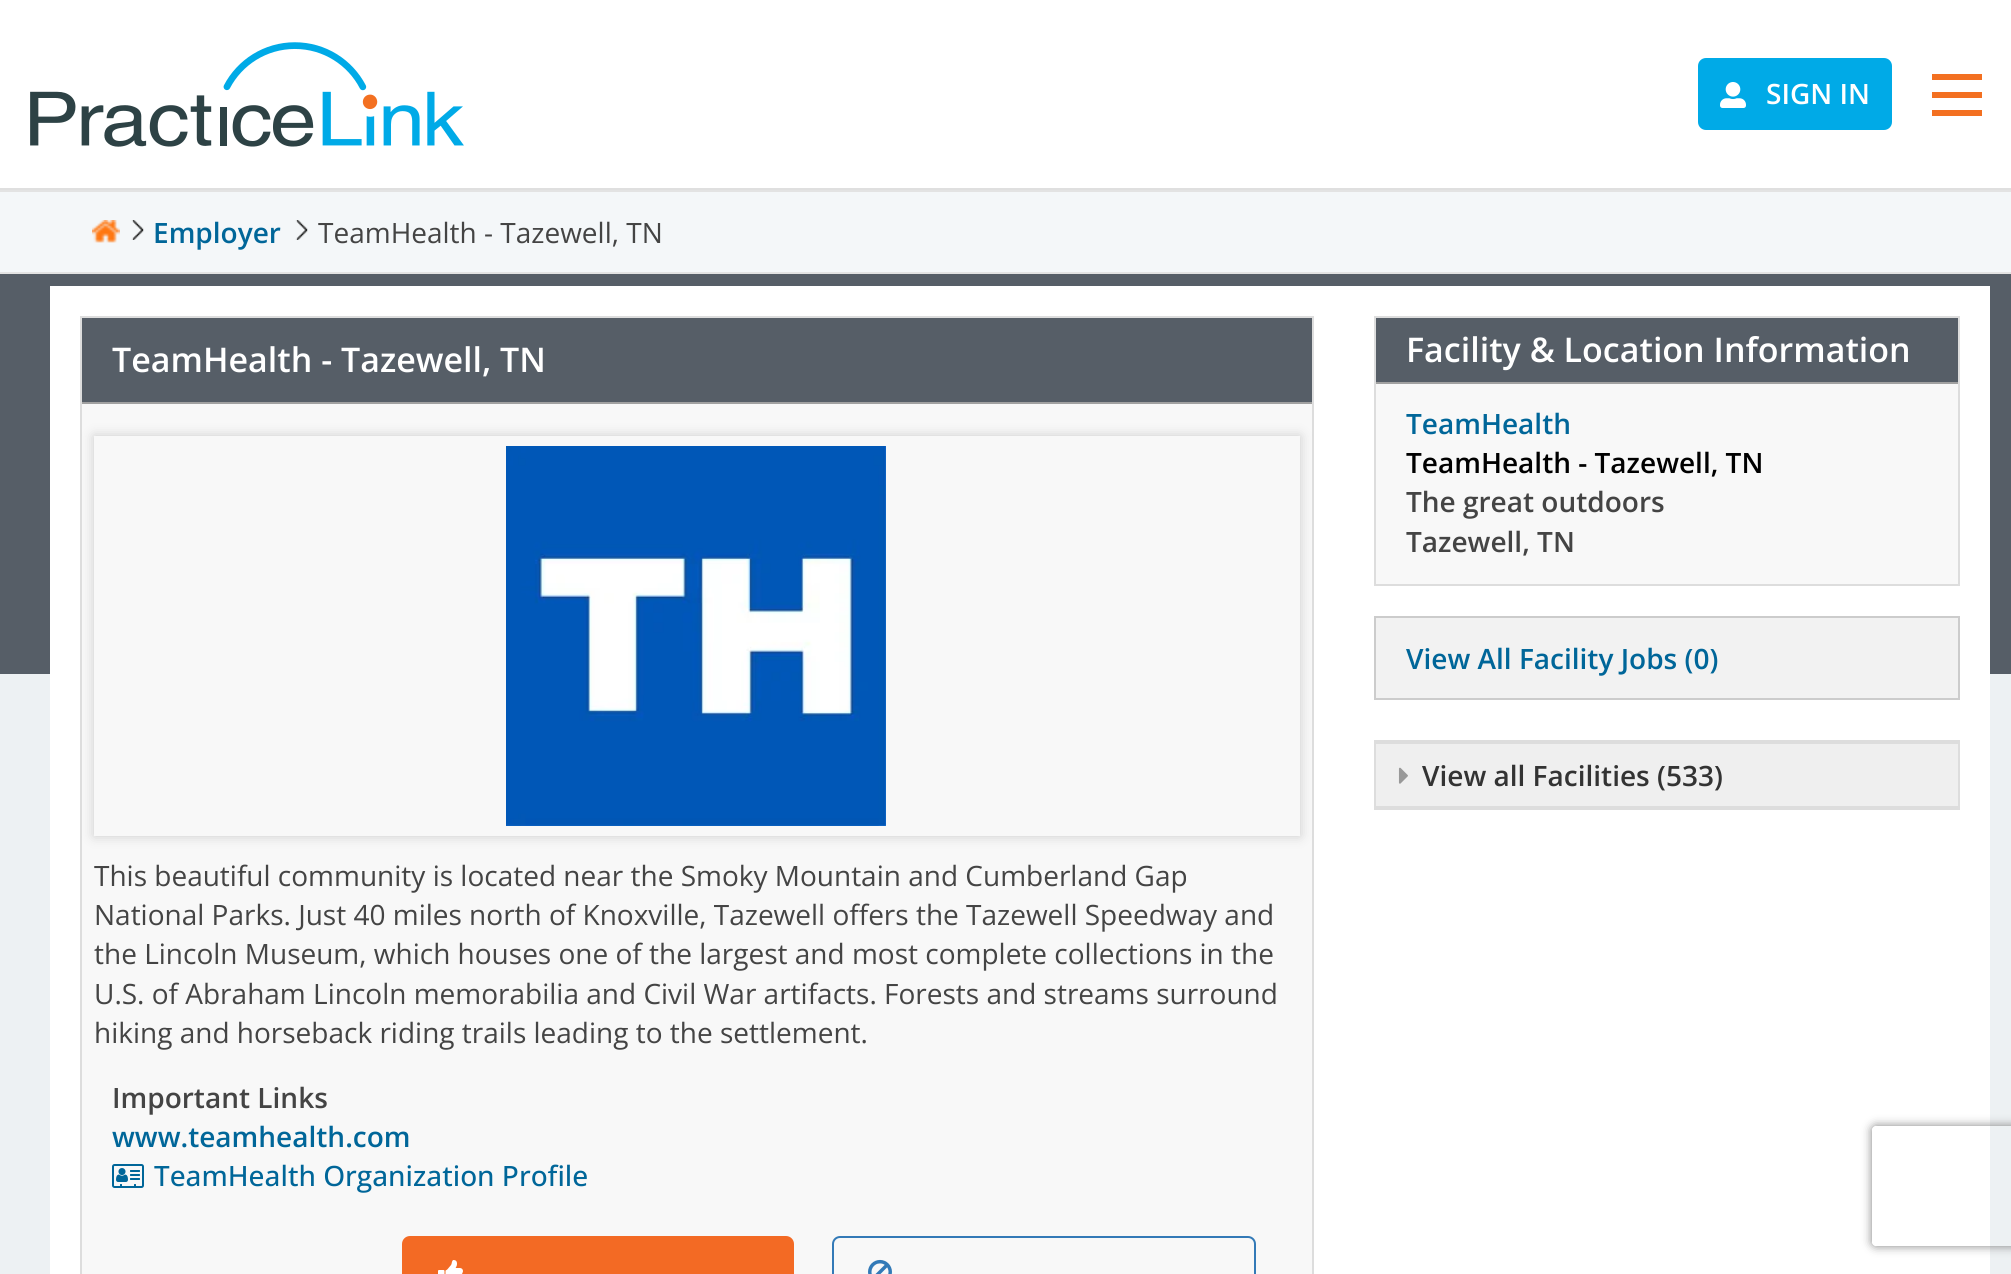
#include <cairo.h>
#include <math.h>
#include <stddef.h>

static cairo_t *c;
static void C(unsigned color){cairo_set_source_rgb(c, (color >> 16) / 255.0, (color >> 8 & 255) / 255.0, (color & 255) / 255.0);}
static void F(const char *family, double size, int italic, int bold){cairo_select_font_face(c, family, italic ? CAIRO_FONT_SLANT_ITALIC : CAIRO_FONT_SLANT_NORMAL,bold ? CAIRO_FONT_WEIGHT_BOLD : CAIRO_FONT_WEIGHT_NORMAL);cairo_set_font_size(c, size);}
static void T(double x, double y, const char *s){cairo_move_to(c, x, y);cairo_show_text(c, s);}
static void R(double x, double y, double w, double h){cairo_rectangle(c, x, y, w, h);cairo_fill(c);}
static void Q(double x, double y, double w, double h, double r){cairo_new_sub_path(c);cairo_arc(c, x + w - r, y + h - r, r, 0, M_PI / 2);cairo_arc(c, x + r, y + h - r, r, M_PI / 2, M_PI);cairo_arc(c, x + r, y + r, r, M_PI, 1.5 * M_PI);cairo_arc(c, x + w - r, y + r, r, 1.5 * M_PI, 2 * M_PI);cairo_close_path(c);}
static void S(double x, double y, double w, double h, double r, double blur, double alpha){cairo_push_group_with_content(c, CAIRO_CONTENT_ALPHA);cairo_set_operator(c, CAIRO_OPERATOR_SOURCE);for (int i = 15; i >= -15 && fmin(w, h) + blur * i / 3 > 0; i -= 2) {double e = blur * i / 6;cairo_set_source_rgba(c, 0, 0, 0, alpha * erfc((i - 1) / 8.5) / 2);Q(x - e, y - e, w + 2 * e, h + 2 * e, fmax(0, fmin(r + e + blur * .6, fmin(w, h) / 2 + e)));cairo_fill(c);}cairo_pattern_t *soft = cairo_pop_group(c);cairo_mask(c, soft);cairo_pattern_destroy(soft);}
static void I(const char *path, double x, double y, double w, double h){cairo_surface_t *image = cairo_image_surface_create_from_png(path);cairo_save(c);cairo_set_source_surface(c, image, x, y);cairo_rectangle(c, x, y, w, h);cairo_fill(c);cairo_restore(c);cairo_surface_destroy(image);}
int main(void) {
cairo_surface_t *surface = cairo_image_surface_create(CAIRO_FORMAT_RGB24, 2011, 1274);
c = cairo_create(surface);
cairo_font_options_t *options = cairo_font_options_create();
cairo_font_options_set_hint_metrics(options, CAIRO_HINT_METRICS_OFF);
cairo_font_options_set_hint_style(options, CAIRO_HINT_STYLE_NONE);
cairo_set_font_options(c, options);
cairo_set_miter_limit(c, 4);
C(0xf4f7f9);
cairo_paint(c);
C(0xffffff);
R(0,0,2011,188);
C(0xdfdfdf);
R(0,188,2011,2);
I("1.png",30,42,434,105);
C(0x00aae7);
Q(1699,59,192,70,7);
cairo_fill_preserve(c);
cairo_stroke(c);
I("2.png",1720,82,26,26);
F("Open Sans SemiBold",28,0,0);
C(0xffffff);
T(1766,104,"SIGN IN");
C(0xf37021);
R(1932,74,50,6);
R(1932,92,50,6);
R(1932,110,50,6);
C(0xe3e3e3);
R(0,190,2011,2);
R(0,272,2011,2);
I("3.png",92,220,28,23);
I("4.png",131,220,13,20);
C(0x006699);
T(153,243,"Employer");
I("4.png",295,220,13,20);
F("Open Sans",28,0,0);
C(0x444444);
T(318,243,"TeamHealth - Tazewell, TN");
C(0xedf1f3);
R(0,674,2011,600);
C(0x565e67);
R(0,274,2011,400);
C(0xffffff);
R(50,286,1940,988);
cairo_rectangle(c,81,317,1232,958);
C(0xdddddd);
cairo_stroke(c);
C(0x565e67);
R(82,318,1230,84);
C(0xa1a1a1);
R(82,402,1230,2);
F("Open Sans SemiBold",34,0,0);
C(0xffffff);
T(112,372,"TeamHealth - Tazewell, TN");
C(0xf8f8f8);
R(82,404,1230,870);
cairo_save(c);
cairo_set_fill_rule(c,CAIRO_FILL_RULE_EVEN_ODD);
cairo_new_path(c);
cairo_move_to(c,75,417);
cairo_line_to(c,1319,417);
cairo_line_to(c,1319,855);
cairo_line_to(c,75,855);
cairo_close_path(c);
cairo_move_to(c,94,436);
cairo_line_to(c,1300,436);
cairo_line_to(c,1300,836);
cairo_line_to(c,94,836);
cairo_close_path(c);
cairo_clip(c);
C(0xcccccc);
S(94,436,1206,400,0,6,1);
cairo_restore(c);
I("5.png",506,446,380,380);
F("Open Sans",28,0,0);
C(0x444444);
T(94,886,"This beautiful community is located near the Smoky Mountain and Cumberland Gap");
T(94,925,"National Parks. Just 40 miles north of Knoxville, Tazewell offers the Tazewell Speedway and");
T(94,964,"the Lincoln Museum, which houses one of the largest and most complete collections in the");
T(94,1004,"U.S. of Abraham Lincoln memorabilia and Civil War artifacts. Forests and streams surround");
T(94,1043,"hiking and horseback riding trails leading to the settlement.");
F("Open Sans SemiBold",28,0,0);
T(112,1108,"Important Links");
C(0x006699);
T(112,1147,"www.teamhealth.com");
I("6.png",112,1164,32,24);
F("Open Sans Medium",28,0,0);
T(154,1186,"TeamHealth Organization Profile");
C(0xf36a24);
Q(403,1237,390,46,7);
cairo_fill_preserve(c);
cairo_stroke(c);
I("7.png",438,1260,25,14);
Q(833,1237,422,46,7);
C(0x337ab7);
cairo_stroke(c);
I("8.png",868,1259,24,15);
cairo_rectangle(c,1375,317,584,268);
C(0xdddddd);
cairo_stroke(c);
C(0x565e67);
R(1376,318,582,64);
C(0xa1a1a1);
R(1376,382,582,2);
F("Open Sans SemiBold",34,0,0);
C(0xffffff);
T(1406,362,"Facility & Location Information");
C(0xf8f8f8);
R(1376,384,582,200);
F("Open Sans SemiBold",28,0,0);
C(0x006699);
T(1406,434,"TeamHealth");
C(0x000000);
T(1406,473,"TeamHealth - Tazewell, TN");
C(0x444444);
T(1406,512,"The great outdoors");
T(1406,552,"Tazewell, TN");
C(0xf2f2f2);
cairo_rectangle(c,1375,617,584,82);
cairo_fill_preserve(c);
C(0xcccccc);
cairo_stroke(c);
C(0x006699);
T(1406,669,"View All Facility Jobs (0)");
cairo_rectangle(c,1375,741,584,68);
C(0xdddddd);
cairo_stroke(c);
C(0xefefef);
R(1376,744,582,62);
C(0xdddddd);
R(1376,742,582,2);
R(1376,806,582,2);
I("9.png",1398,767,10,17);
C(0x333333);
T(1422,786,"View all Facilities (533)");
cairo_save(c);
cairo_set_fill_rule(c,CAIRO_FILL_RULE_EVEN_ODD);
cairo_new_path(c);
cairo_move_to(c,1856,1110);
cairo_line_to(c,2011,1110);
cairo_line_to(c,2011,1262);
cairo_line_to(c,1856,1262);
cairo_close_path(c);
cairo_move_to(c,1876,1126);
cairo_line_to(c,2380,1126);
cairo_curve_to(c,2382,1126,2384,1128,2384,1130);
cairo_line_to(c,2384,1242);
cairo_curve_to(c,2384,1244,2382,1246,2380,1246);
cairo_line_to(c,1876,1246);
cairo_curve_to(c,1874,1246,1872,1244,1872,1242);
cairo_line_to(c,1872,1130);
cairo_curve_to(c,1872,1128,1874,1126,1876,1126);
cairo_close_path(c);
cairo_clip(c);
C(0x808080);
S(1872,1126,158,120,4,5,1);
cairo_restore(c);
cairo_surface_write_to_png(surface, "o.png");
cairo_font_options_destroy(options);
cairo_destroy(c);
cairo_surface_destroy(surface);
return 0;
}
